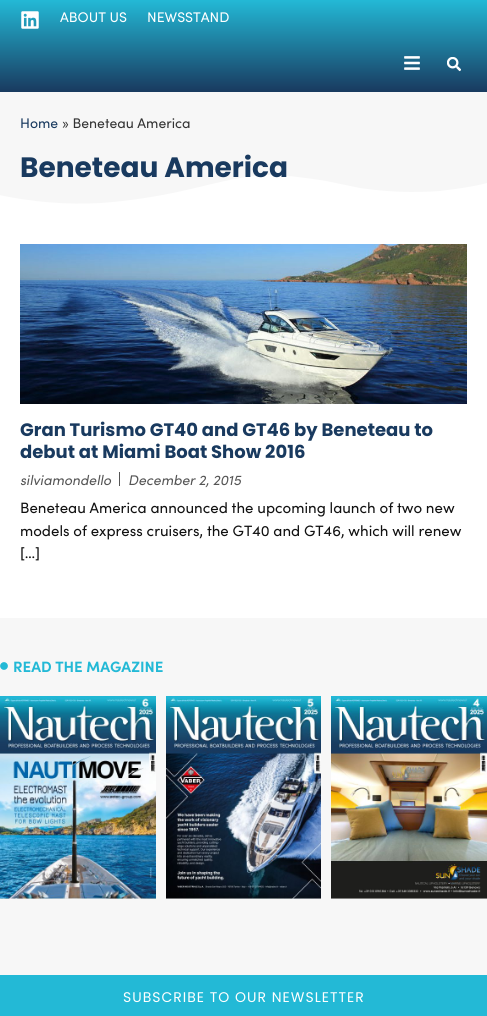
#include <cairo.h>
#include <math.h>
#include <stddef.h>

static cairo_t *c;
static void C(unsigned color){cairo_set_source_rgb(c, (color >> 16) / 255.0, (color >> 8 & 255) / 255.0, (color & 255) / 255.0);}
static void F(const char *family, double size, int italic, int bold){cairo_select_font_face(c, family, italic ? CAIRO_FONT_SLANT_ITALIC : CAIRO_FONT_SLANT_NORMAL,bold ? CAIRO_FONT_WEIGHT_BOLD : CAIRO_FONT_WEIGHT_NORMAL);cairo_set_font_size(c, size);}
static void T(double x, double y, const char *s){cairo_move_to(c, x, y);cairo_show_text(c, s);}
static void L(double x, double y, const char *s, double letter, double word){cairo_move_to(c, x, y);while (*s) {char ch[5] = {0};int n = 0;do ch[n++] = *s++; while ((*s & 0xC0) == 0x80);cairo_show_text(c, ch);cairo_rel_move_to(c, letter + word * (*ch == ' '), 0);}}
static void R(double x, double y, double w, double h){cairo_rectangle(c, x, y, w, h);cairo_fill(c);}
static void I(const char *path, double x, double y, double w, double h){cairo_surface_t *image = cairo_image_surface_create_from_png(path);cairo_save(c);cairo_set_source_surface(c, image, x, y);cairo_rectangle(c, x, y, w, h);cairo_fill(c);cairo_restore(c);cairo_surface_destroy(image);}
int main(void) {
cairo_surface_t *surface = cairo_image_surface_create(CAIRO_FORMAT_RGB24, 487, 1016);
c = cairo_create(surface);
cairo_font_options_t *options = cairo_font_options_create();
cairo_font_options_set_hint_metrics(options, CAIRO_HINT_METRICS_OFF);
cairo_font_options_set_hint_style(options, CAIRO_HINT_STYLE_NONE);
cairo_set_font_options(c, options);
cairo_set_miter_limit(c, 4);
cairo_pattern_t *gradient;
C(0xffffff);
cairo_paint(c);
gradient = cairo_pattern_create_linear(244,0,244,92);
cairo_pattern_add_color_stop_rgba(gradient,0,0.137,0.725,0.839,1);
cairo_pattern_add_color_stop_rgba(gradient,1,0.098,0.227,0.373,1);
cairo_set_source(c,gradient);
cairo_pattern_destroy(gradient);
R(0,0,487,92);
I("1.png",21,11,18,18);
F("Sofia",14,0,0);
C(0xffffff);
T(60,22,"ABOUT US");
T(147,22,"NEWSSTAND");
I("2.png",404,56,16,14);
I("3.png",447,57,14,15);
C(0xf7f7f7);
R(0,92,487,112);
C(0x193a5f);
T(20,128,"Home");
C(0x333333);
T(62,128,"» Beneteau America");
C(0xffffff);
cairo_new_path(c);
cairo_move_to(c,101,203);
cairo_curve_to(c,128,201,155,197,182,191);
cairo_curve_to(c,210,185,238,176,268,175);
cairo_curve_to(c,287,175,307,178,326,181);
cairo_line_to(c,360,188);
cairo_curve_to(c,387,192,413,193,440,191);
cairo_curve_to(c,456,189,472,187,487,183);
cairo_line_to(c,487,205);
cairo_line_to(c,-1,205);
cairo_line_to(c,-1,195);
cairo_curve_to(c,32,202,67,205,101,203);
cairo_close_path(c);
cairo_fill(c);
F("Poppins",28,0,1);
C(0x193a5f);
T(20,177,"Beneteau America");
I("4.png",20,244,447,160);
F("Poppins",18,0,1);
T(20,436,"Gran Turismo GT40 and GT46 by Beneteau to");
T(20,458,"debut at Miami Boat Show 2016");
F("Sofia",14,1,0);
C(0x555555);
T(20,485,"silviamondello");
R(119,472,1,14);
T(128,485,"December 2, 2015");
F("Sofia",15,0,0);
C(0x111111);
T(20,513,"Beneteau America announced the upcoming launch of two new");
T(20,536,"models of express cruisers, the GT40 and GT46, which will renew");
T(20,558,"[…]");
C(0xf7f7f7);
R(0,618,487,357);
I("5.png",0,662,8,8);
F("Sofia",15,0,1);
C(0x23b9d6);
T(13,672,"READ THE MAGAZINE");
I("6.png",0,696,156,203);
I("7.png",166,696,155,203);
I("8.png",331,696,156,203);
R(0,975,487,41);
F("Poppins",14,0,0);
C(0xffffff);
L(123,1002,"SUBSCRIBE TO OUR NEWSLETTER",1,0);
cairo_surface_write_to_png(surface, "o.png");
cairo_font_options_destroy(options);
cairo_destroy(c);
cairo_surface_destroy(surface);
return 0;
}
